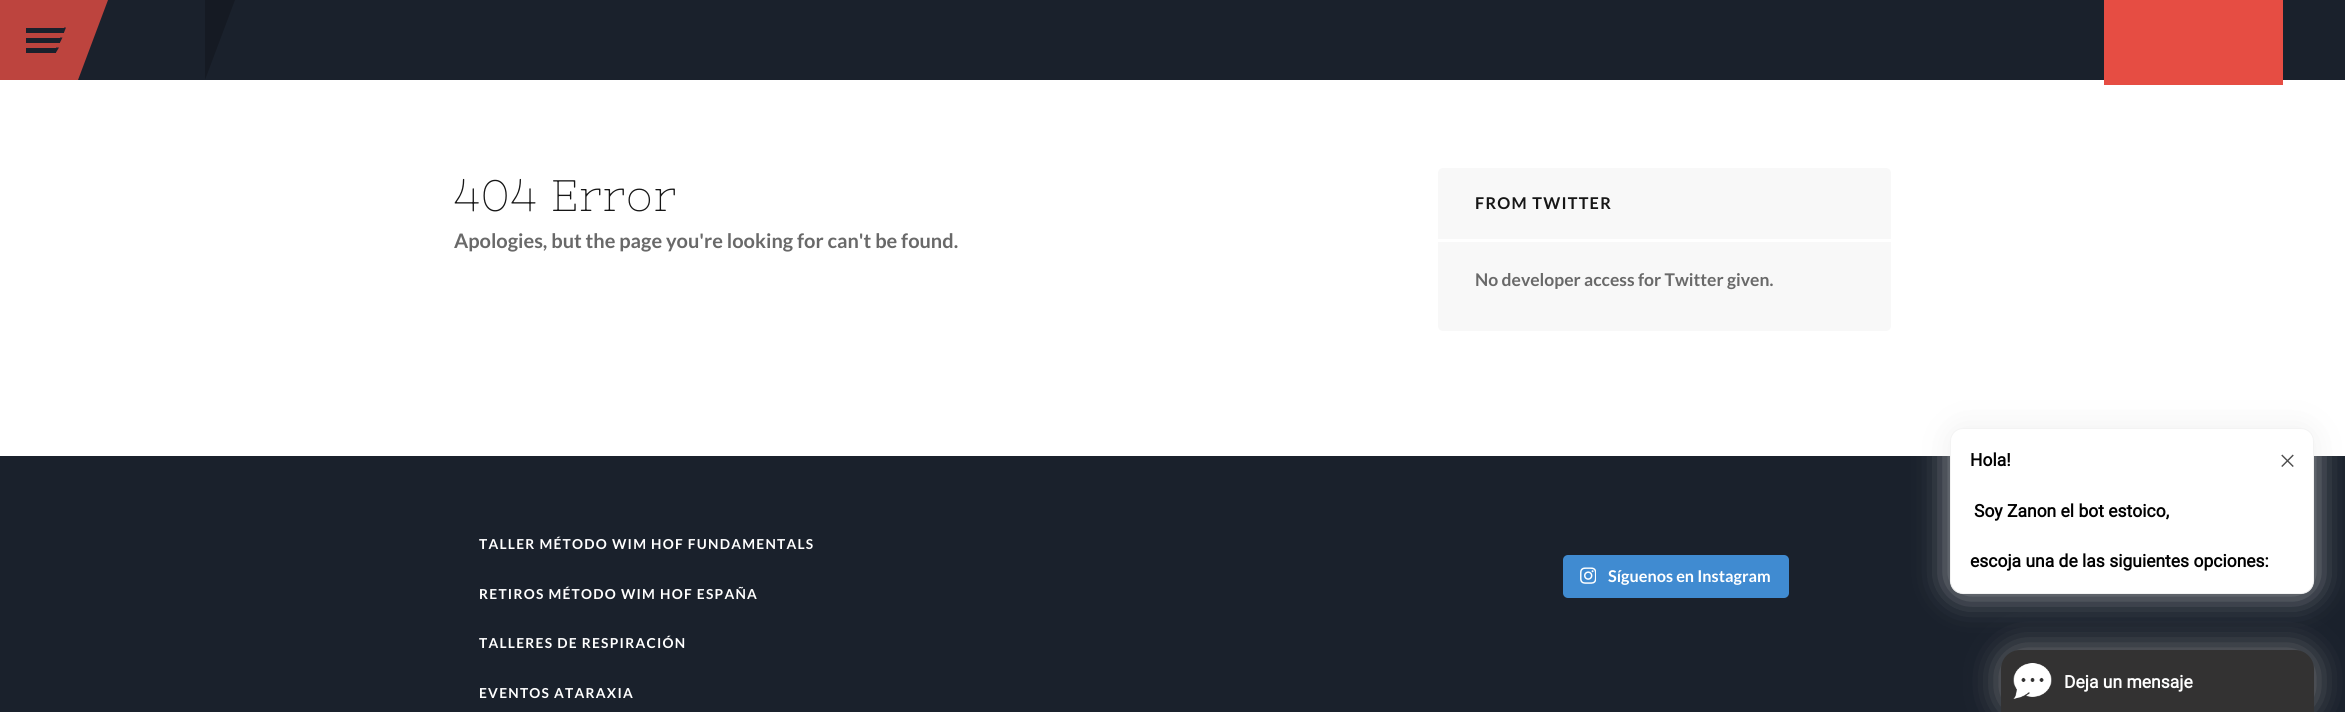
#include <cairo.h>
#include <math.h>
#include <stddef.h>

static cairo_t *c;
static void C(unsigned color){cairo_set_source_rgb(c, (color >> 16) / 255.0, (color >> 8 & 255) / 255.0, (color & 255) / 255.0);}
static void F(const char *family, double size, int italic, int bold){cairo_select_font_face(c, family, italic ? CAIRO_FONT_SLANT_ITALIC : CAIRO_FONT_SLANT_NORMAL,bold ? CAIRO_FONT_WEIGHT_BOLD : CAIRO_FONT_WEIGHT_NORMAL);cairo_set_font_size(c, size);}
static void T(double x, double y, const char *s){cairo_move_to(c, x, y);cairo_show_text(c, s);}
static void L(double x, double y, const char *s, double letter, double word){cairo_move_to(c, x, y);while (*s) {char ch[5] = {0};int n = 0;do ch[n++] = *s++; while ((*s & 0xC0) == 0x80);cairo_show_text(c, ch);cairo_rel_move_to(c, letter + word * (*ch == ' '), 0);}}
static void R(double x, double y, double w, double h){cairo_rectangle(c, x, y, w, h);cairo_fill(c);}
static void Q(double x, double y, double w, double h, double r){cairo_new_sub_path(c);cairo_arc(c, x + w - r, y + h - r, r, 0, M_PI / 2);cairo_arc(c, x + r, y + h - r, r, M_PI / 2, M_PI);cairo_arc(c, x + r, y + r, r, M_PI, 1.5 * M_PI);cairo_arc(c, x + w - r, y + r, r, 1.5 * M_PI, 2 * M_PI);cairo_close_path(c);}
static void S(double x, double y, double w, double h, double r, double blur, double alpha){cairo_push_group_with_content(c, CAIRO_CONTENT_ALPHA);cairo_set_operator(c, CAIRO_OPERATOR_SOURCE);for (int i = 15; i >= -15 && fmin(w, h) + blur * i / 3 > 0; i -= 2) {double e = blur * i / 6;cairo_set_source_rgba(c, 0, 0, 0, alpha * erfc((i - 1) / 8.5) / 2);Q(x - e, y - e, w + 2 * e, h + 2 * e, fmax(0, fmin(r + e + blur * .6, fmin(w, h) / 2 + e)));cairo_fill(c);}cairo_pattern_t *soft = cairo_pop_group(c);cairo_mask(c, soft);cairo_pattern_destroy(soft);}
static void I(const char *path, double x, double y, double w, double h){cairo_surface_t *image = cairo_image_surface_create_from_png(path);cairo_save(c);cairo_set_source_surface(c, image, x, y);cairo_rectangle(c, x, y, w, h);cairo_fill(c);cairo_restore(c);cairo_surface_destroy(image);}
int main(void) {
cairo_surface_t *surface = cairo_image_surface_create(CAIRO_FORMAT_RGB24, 2345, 712);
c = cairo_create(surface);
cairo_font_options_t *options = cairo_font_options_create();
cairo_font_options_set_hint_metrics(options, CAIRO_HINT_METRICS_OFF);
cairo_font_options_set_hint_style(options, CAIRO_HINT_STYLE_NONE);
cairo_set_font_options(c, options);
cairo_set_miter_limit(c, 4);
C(0xffffff);
cairo_paint(c);
C(0xbd443e);
R(0,0,78,80);
C(0x1a212c);
R(26,28,38,5);
cairo_new_path(c);
cairo_move_to(c,64,27.5);
cairo_line_to(c,66,27.5);
cairo_line_to(c,64,32.5);
cairo_close_path(c);
cairo_fill(c);
R(26,38,34,5);
cairo_new_path(c);
cairo_move_to(c,60,37.5);
cairo_line_to(c,62.5,37.5);
cairo_line_to(c,60,42.5);
cairo_close_path(c);
cairo_fill(c);
R(26,48,30,5);
cairo_new_path(c);
cairo_move_to(c,56,47.5);
cairo_line_to(c,59,47.5);
cairo_line_to(c,56,52.5);
cairo_close_path(c);
cairo_fill(c);
R(78,0,2267,80);
C(0xbd443e);
cairo_new_path(c);
cairo_move_to(c,78,0);
cairo_line_to(c,108,0);
cairo_line_to(c,78,80);
cairo_close_path(c);
cairo_fill(c);
C(0x151a23);
cairo_new_path(c);
cairo_move_to(c,205,0);
cairo_line_to(c,235,0);
cairo_line_to(c,205,80);
cairo_close_path(c);
cairo_fill(c);
C(0xe64d43);
R(2104,0,179,85);
F("Nixie One",44,0,0);
C(0x161616);
L(454,211,"404 Error",1.25,0);
F("Lato",20,0,1);
C(0x696969);
T(454,248,"Apologies, but the page you're looking for can't be found.");
C(0xf8f8f8);
Q(1438,168,453,163,5);
cairo_fill(c);
C(0xffffff);
R(1438,239,453,3);
F("Lato",16.25,0,1);
C(0x161616);
L(1475,209,"FROM TWITTER",1.25,0);
F("Lato",17.5,0,1);
C(0x696969);
T(1475,286,"No developer access for Twitter given.");
C(0x1a212c);
R(0,456,2345,256);
F("Lato",13.75,0,1);
C(0xffffff);
L(479,549,"TALLER MÉTODO WIM HOF FUNDAMENTALS",1.25,0);
L(479,599,"RETIROS MÉTODO WIM HOF ESPAÑA",1.25,0);
L(479,648,"TALLERES DE RESPIRACIÓN",1.25,0);
L(479,698,"EVENTOS ATARAXIA",1.25,0);
C(0x408bd1);
Q(1563,555,226,43,5);
cairo_fill(c);
I("1.png",1580,567,16,17);
F("Lato",16.25,0,1);
C(0xffffff);
T(1608,582,"Síguenos en Instagram");
C(0xe7e7e7);
S(1950,428,364,166,13,15.5,.67);
C(0xffffff);
Q(1950.5,428.5,363,165,12.5);
cairo_fill_preserve(c);
C(0xf3f3f3);
cairo_set_line_width(c,1);
cairo_stroke(c);
F("Roboto",17.5,0,1);
C(0x000000);
T(1970,466,"Hola!");
T(1974,517,"Soy Zanon el bot estoico,");
T(1970,567,"escoja una de las siguientes opciones:");
I("2.png",2281,454,13,13);
C(0x7a7a7a);
S(2001,650,313,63,19,15.5,1);
C(0x333232);
cairo_new_path(c);
cairo_move_to(c,2020,650);
cairo_line_to(c,2295,650);
cairo_curve_to(c,2305.5,650,2314,658.5,2314,669);
cairo_line_to(c,2314,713);
cairo_line_to(c,2001,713);
cairo_line_to(c,2001,669);
cairo_curve_to(c,2001,658.5,2009.5,650,2020,650);
cairo_close_path(c);
cairo_fill(c);
I("3.png",2013,663,39,36);
C(0xffffff);
T(2064,688,"Deja un mensaje");
cairo_surface_write_to_png(surface, "o.png");
cairo_font_options_destroy(options);
cairo_destroy(c);
cairo_surface_destroy(surface);
return 0;
}
